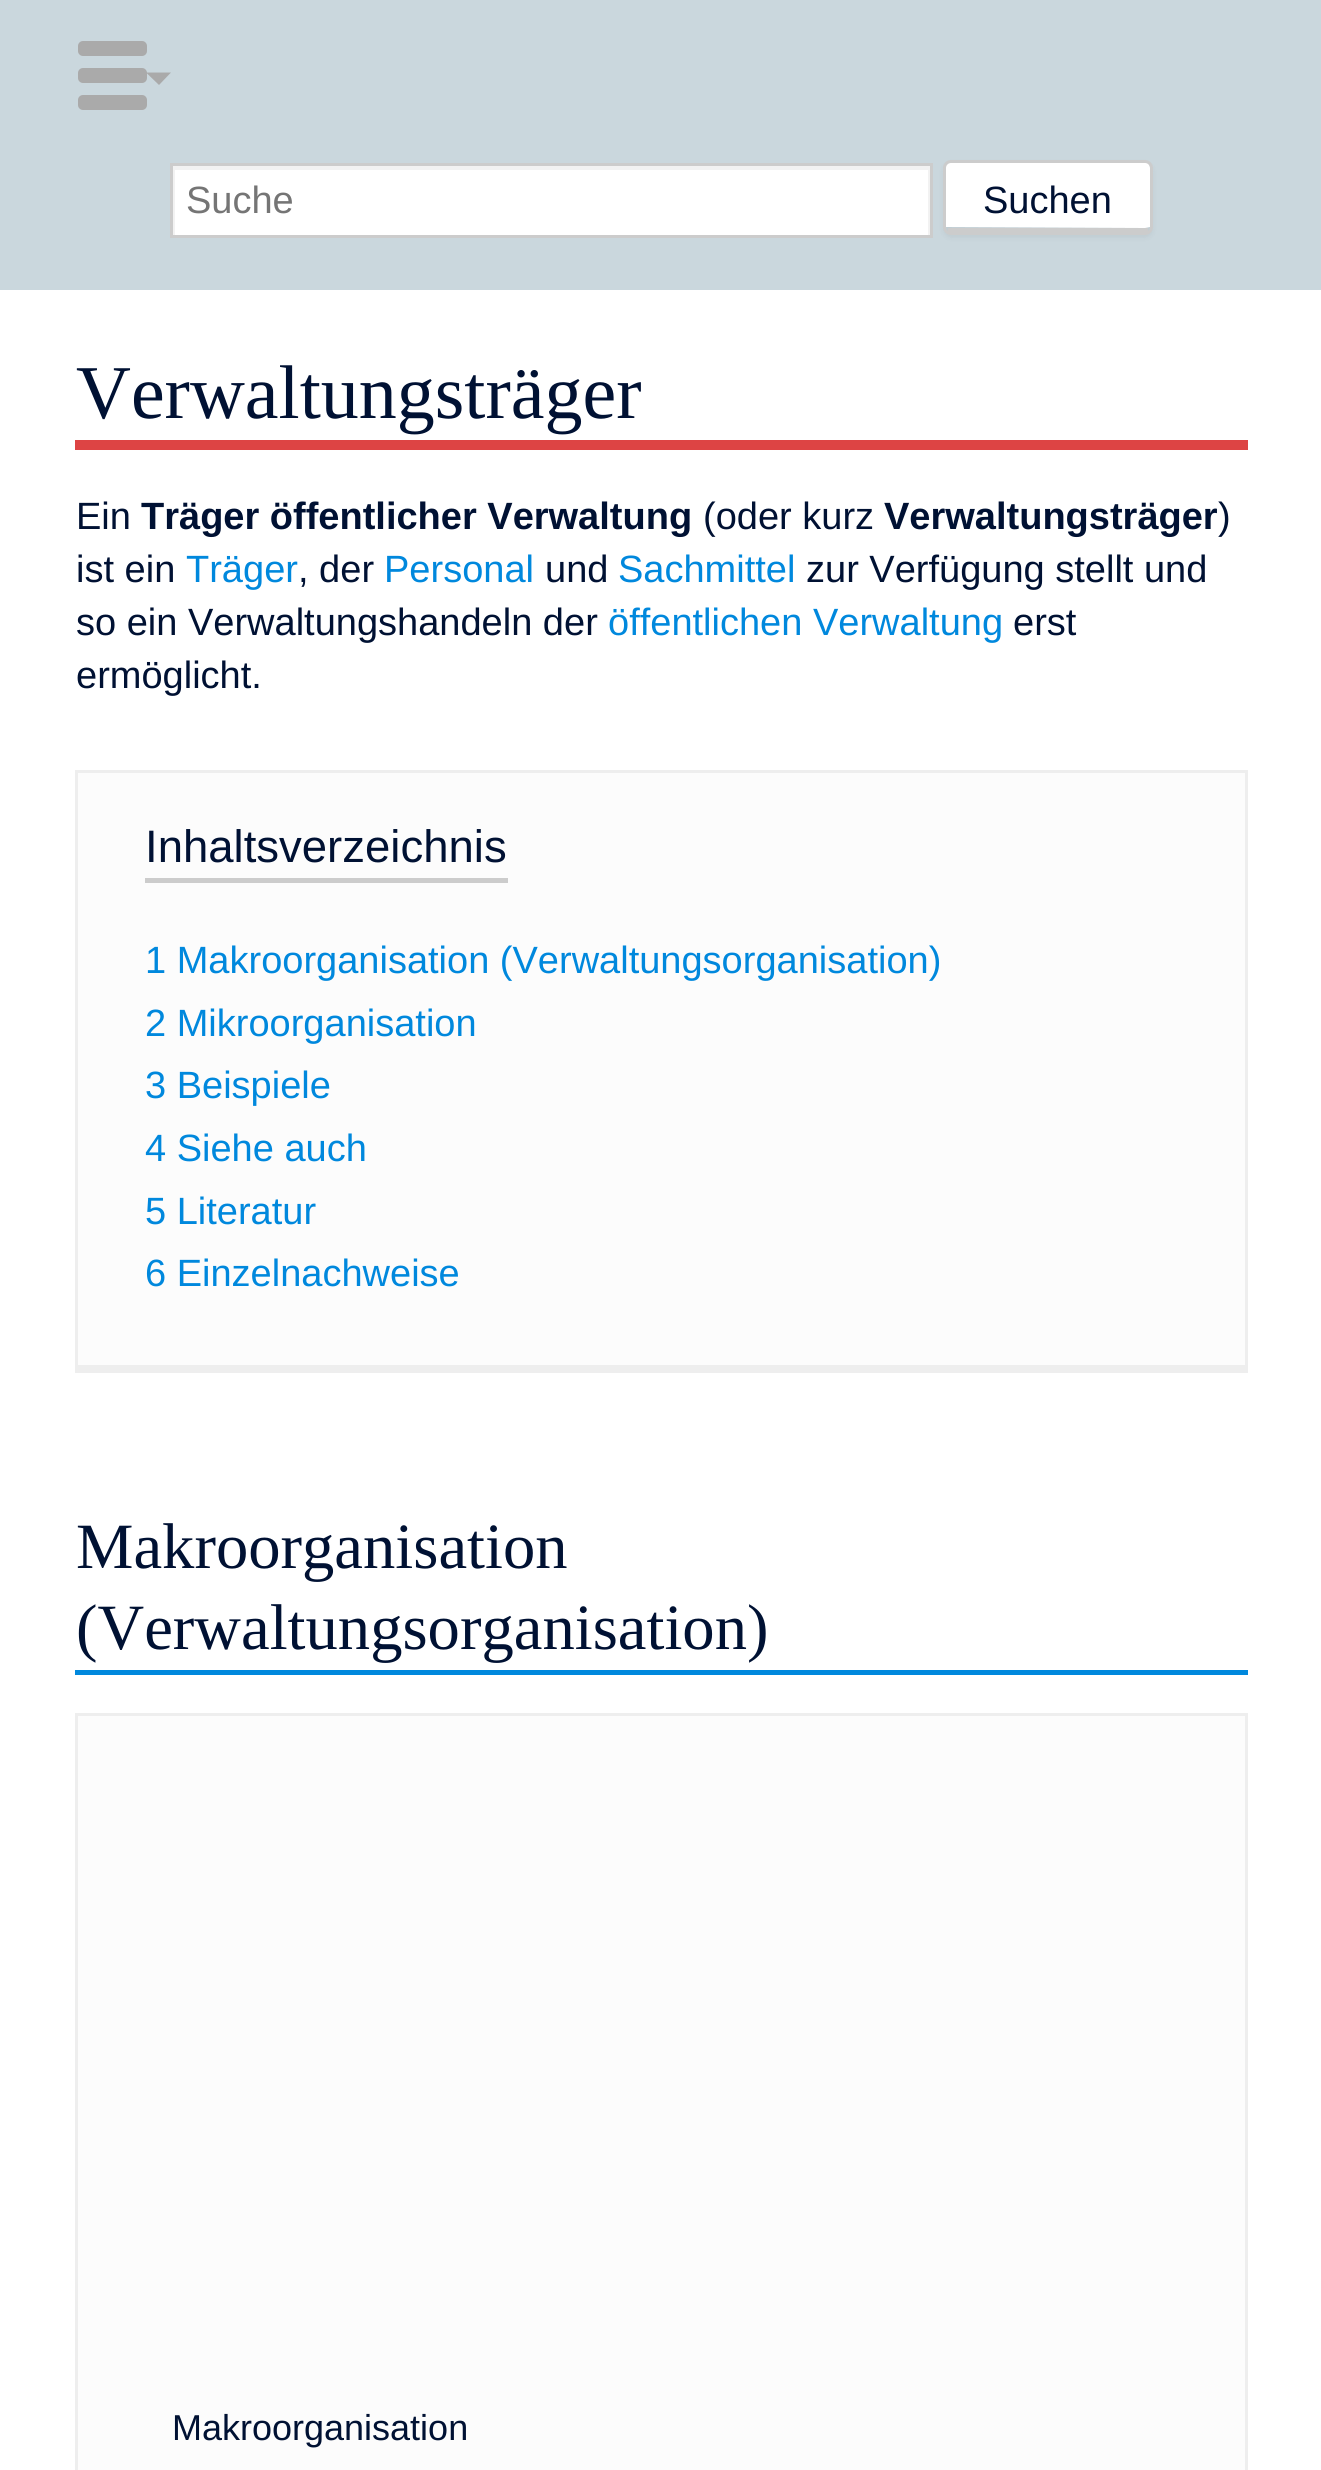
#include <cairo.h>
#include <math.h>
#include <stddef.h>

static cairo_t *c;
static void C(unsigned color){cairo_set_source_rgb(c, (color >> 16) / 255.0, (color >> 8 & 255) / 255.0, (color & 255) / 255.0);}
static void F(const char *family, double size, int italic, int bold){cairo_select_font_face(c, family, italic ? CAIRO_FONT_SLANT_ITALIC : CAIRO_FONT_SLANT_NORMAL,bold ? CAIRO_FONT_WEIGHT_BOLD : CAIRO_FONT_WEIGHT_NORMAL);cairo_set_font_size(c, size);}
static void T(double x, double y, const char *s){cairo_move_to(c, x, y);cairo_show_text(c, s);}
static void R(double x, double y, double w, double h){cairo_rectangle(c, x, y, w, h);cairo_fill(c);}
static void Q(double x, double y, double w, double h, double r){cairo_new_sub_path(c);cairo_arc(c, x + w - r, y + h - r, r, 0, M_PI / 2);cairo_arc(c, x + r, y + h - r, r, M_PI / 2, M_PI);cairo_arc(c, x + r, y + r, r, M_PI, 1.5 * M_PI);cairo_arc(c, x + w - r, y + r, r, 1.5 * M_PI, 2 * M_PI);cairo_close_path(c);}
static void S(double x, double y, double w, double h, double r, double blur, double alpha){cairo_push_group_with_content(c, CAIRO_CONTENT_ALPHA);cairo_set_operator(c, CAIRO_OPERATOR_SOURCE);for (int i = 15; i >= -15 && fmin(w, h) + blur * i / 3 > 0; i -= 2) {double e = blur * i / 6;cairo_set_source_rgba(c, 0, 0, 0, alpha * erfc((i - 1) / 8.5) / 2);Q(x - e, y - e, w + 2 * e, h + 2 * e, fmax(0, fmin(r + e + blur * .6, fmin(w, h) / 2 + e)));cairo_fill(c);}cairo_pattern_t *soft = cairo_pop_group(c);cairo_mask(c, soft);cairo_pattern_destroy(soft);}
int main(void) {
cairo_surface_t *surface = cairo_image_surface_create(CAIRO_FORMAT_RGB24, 1321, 2470);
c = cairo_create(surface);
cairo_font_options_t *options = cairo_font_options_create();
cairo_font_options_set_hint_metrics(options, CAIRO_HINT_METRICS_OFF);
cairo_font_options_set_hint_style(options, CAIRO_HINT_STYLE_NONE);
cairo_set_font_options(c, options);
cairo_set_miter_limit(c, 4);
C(0xcad7dd);
cairo_paint(c);
C(0xffffff);
R(175,170,753,65);
cairo_save(c);
cairo_rectangle(c,173,165,757,70);
cairo_clip(c);
C(0xf2f2f2);
cairo_set_fill_rule(c,CAIRO_FILL_RULE_EVEN_ODD);
cairo_new_path(c);
cairo_move_to(c,-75,-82);
cairo_line_to(c,1178,-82);
cairo_line_to(c,1178,482);
cairo_line_to(c,-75,482);
cairo_close_path(c);
cairo_move_to(c,175,170);
cairo_line_to(c,928,170);
cairo_line_to(c,928,235);
cairo_line_to(c,175,235);
cairo_close_path(c);
cairo_fill(c);
cairo_restore(c);
cairo_rectangle(c,171.5,164.5,760,72);
C(0xcccccc);
cairo_set_line_width(c,3);
cairo_stroke(c);
F("Liberation Sans",38,0,0);
C(0x757575);
T(186,213,"Suche");
C(0x000000);
S(943,163,210,75,8,2.5,.05);
C(0xffffff);
cairo_new_path(c);
cairo_move_to(c,950,162);
cairo_line_to(c,1145,162);
cairo_curve_to(c,1148,162,1150,165,1150,168);
cairo_line_to(c,1150,227);
cairo_line_to(c,1145,228);
cairo_line_to(c,945,227);
cairo_line_to(c,945,168);
cairo_curve_to(c,945,165,947,162,950,162);
cairo_close_path(c);
cairo_fill(c);
Q(944.5,161.5,207,72,6.5);
C(0xcccccc);
cairo_stroke(c);
R(948,228,200,4);
C(0x001133);
T(983,213,"Suchen");
C(0xffffff);
R(0,290,1321,2180);
C(0xaaaaaa);
Q(78,95,69,15,5);
cairo_fill(c);
Q(78,68,69,15,5);
cairo_fill(c);
Q(78,41,69,15,5);
cairo_fill(c);
cairo_new_path(c);
cairo_move_to(c,171,72.5);
cairo_line_to(c,159,85);
cairo_line_to(c,146,72.5);
cairo_close_path(c);
cairo_fill(c);
C(0xdd4444);
R(75,440,1173,10);
F("Liberation Serif",76,0,0);
C(0x001133);
T(76,418,"Verwaltungsträger");
F("Liberation Sans",38,0,0);
T(76,529,"Ein");
F("Liberation Sans",38,0,1);
T(141,529,"Träger öffentlicher Verwaltung");
F("Liberation Sans",38,0,0);
T(703,529,"(oder kurz");
F("Liberation Sans",38,0,1);
T(884,529,"Verwaltungsträger");
F("Liberation Sans",38,0,0);
T(1218,529,")");
T(76,582,"ist ein");
C(0x0088dd);
T(186,582,"Träger");
C(0x001133);
T(298,582,", der");
C(0x0088dd);
T(384,582,"Personal");
C(0x001133);
T(545,582,"und");
C(0x0088dd);
T(618,582,"Sachmittel");
C(0x001133);
T(806,582,"zur Verfügung stellt und");
T(76,635,"so ein Verwaltungshandeln der");
C(0x0088dd);
T(608,635,"öffentlichen Verwaltung");
C(0x001133);
T(1013,635,"erst");
T(76,688,"ermöglicht.");
C(0xfcfcfc);
R(78,773,1167,592);
C(0xeeeeee);
R(75,770,1173,3);
R(1245,770,3,603);
R(75,1365,1173,8);
R(75,770,3,603);
C(0xcccccc);
R(145,878,363,5);
F("Liberation Sans",45.5,0,0);
C(0x001133);
T(145,862,"Inhaltsverzeichnis");
F("Liberation Sans",38,0,0);
C(0x0088dd);
T(145,973,"1 Makroorganisation (Verwaltungsorganisation)");
T(145,1036,"2 Mikroorganisation");
T(145,1098,"3 Beispiele");
T(145,1161,"4 Siehe auch");
T(145,1224,"5 Literatur");
T(145,1286,"6 Einzelnachweise");
R(75,1670,1173,5);
F("Liberation Serif",64.6,0,0);
C(0x001133);
T(76,1568,"Makroorganisation");
T(76,1649,"(Verwaltungsorganisation)");
C(0xfcfcfc);
R(78,1716,1167,754);
C(0xeeeeee);
R(75,1713,1173,3);
R(1245,1713,3,757);
R(75,1713,3,757);
F("Liberation Sans",36,0,0);
C(0x001133);
T(172,2440,"Makroorganisation");
cairo_surface_write_to_png(surface, "o.png");
cairo_font_options_destroy(options);
cairo_destroy(c);
cairo_surface_destroy(surface);
return 0;
}
